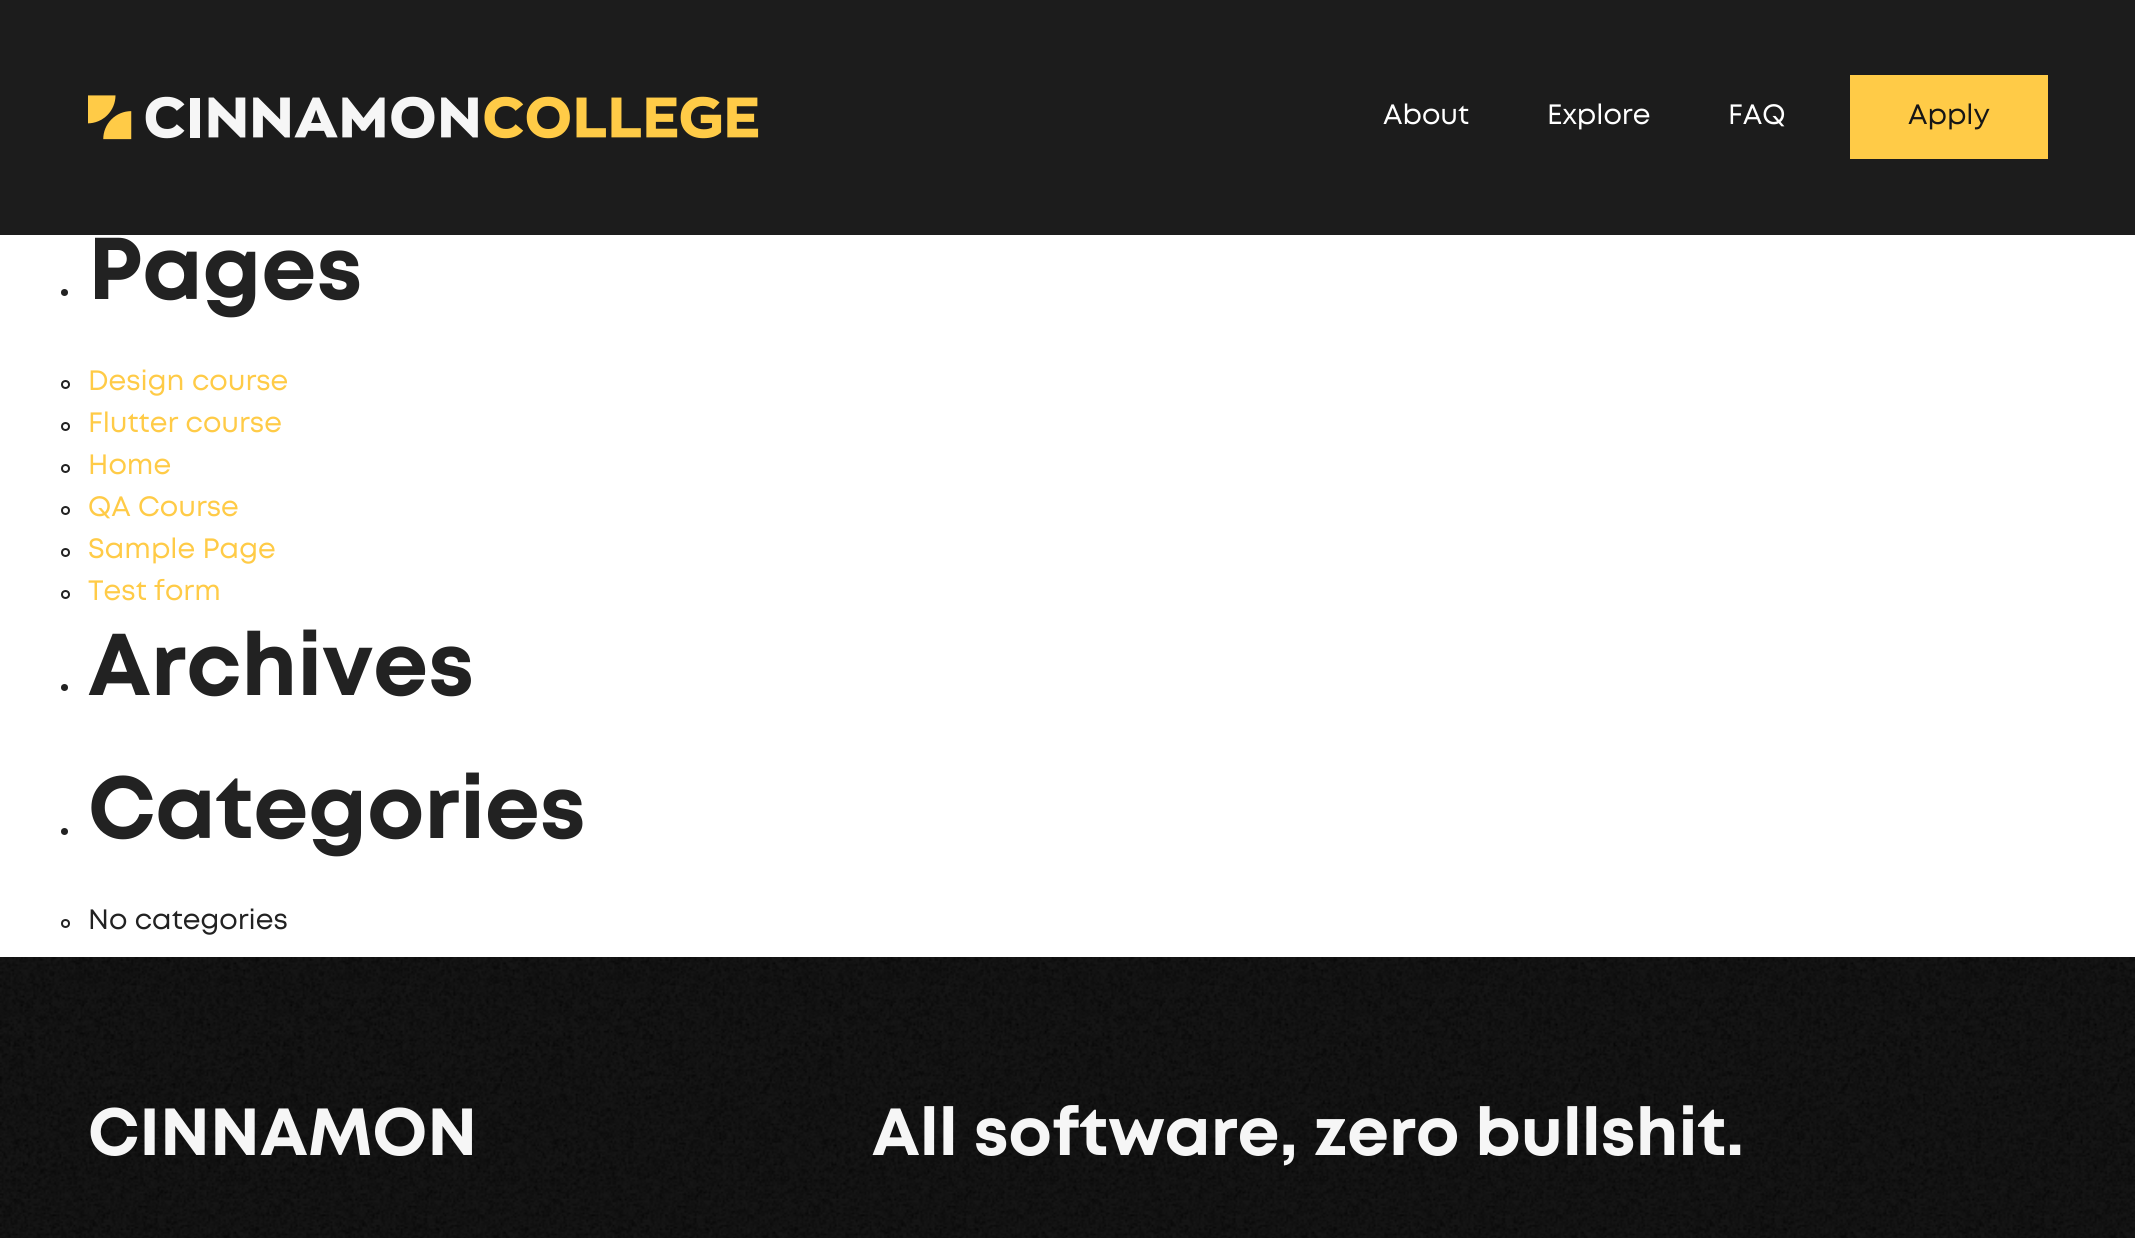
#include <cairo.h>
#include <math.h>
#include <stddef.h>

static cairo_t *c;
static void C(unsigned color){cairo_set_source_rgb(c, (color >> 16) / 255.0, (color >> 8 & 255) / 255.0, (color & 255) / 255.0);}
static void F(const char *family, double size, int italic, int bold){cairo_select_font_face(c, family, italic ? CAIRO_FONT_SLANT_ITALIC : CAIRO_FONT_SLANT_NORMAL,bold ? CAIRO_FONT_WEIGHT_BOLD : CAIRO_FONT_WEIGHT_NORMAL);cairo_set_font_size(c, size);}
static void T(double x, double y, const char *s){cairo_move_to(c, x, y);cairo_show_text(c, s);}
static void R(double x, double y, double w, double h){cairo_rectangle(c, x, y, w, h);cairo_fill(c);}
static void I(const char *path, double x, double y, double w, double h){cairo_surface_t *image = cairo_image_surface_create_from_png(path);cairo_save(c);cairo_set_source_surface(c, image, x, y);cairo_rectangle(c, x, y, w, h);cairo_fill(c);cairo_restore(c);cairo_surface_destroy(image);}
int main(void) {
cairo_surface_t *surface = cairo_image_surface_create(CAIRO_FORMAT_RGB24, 2135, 1238);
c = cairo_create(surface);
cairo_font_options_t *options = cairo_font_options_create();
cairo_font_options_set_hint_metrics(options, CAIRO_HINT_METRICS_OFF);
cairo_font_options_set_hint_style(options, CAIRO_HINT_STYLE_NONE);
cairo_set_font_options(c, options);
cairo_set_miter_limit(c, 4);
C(0xffffff);
cairo_paint(c);
C(0x1c1c1c);
R(0,0,2135,235);
I("1.png",88,95,671,45);
F("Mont",28,0,0);
C(0xffffff);
T(1383,124,"About");
T(1547,124,"Explore");
T(1728,124,"FAQ");
C(0xffcb47);
R(1850,75,198,84);
C(0x161616);
T(1908,124,"Apply");
C(0x222222);
cairo_new_path(c);
cairo_arc(c,64.5,292.5,3.5,0,2 * M_PI);
cairo_fill(c);
F("Mont",87.5,0,1);
T(88,299,"Pages");
cairo_new_path(c);
cairo_arc(c,65.5,384.5,3.5,0,2 * M_PI);
cairo_stroke(c);
F("Mont",28,0,0);
C(0xffcb47);
T(88,390,"Design course");
cairo_new_path(c);
cairo_arc(c,65.5,426.5,3.5,0,2 * M_PI);
C(0x222222);
cairo_stroke(c);
C(0xffcb47);
T(88,432,"Flutter course");
cairo_new_path(c);
cairo_arc(c,65.5,468.5,3.5,0,2 * M_PI);
C(0x222222);
cairo_stroke(c);
C(0xffcb47);
T(88,474,"Home");
cairo_new_path(c);
cairo_arc(c,65.5,510.5,3.5,0,2 * M_PI);
C(0x222222);
cairo_stroke(c);
C(0xffcb47);
T(88,516,"QA Course");
cairo_new_path(c);
cairo_arc(c,65.5,552.5,3.5,0,2 * M_PI);
C(0x222222);
cairo_stroke(c);
C(0xffcb47);
T(88,558,"Sample Page");
cairo_new_path(c);
cairo_arc(c,65.5,594.5,3.5,0,2 * M_PI);
C(0x222222);
cairo_stroke(c);
C(0xffcb47);
T(88,600,"Test form");
C(0x222222);
cairo_new_path(c);
cairo_arc(c,64.5,687.5,3.5,0,2 * M_PI);
cairo_fill(c);
F("Mont",87.5,0,1);
T(88,695,"Archives");
cairo_new_path(c);
cairo_arc(c,64.5,831.5,3.5,0,2 * M_PI);
cairo_fill(c);
T(88,838,"Categories");
cairo_new_path(c);
cairo_arc(c,65.5,923.5,3.5,0,2 * M_PI);
cairo_stroke(c);
F("Mont",28,0,0);
T(88,929,"No categories");
C(0x161616);
R(0,957,2135,281);
I("2.png",0,957,2135,281);
F("Mont",66.5,0,1);
C(0xf6f6f6);
T(88,1155,"CINNAMON");
T(872,1155,"All software, zero bullshit.");
cairo_surface_write_to_png(surface, "o.png");
cairo_font_options_destroy(options);
cairo_destroy(c);
cairo_surface_destroy(surface);
return 0;
}
